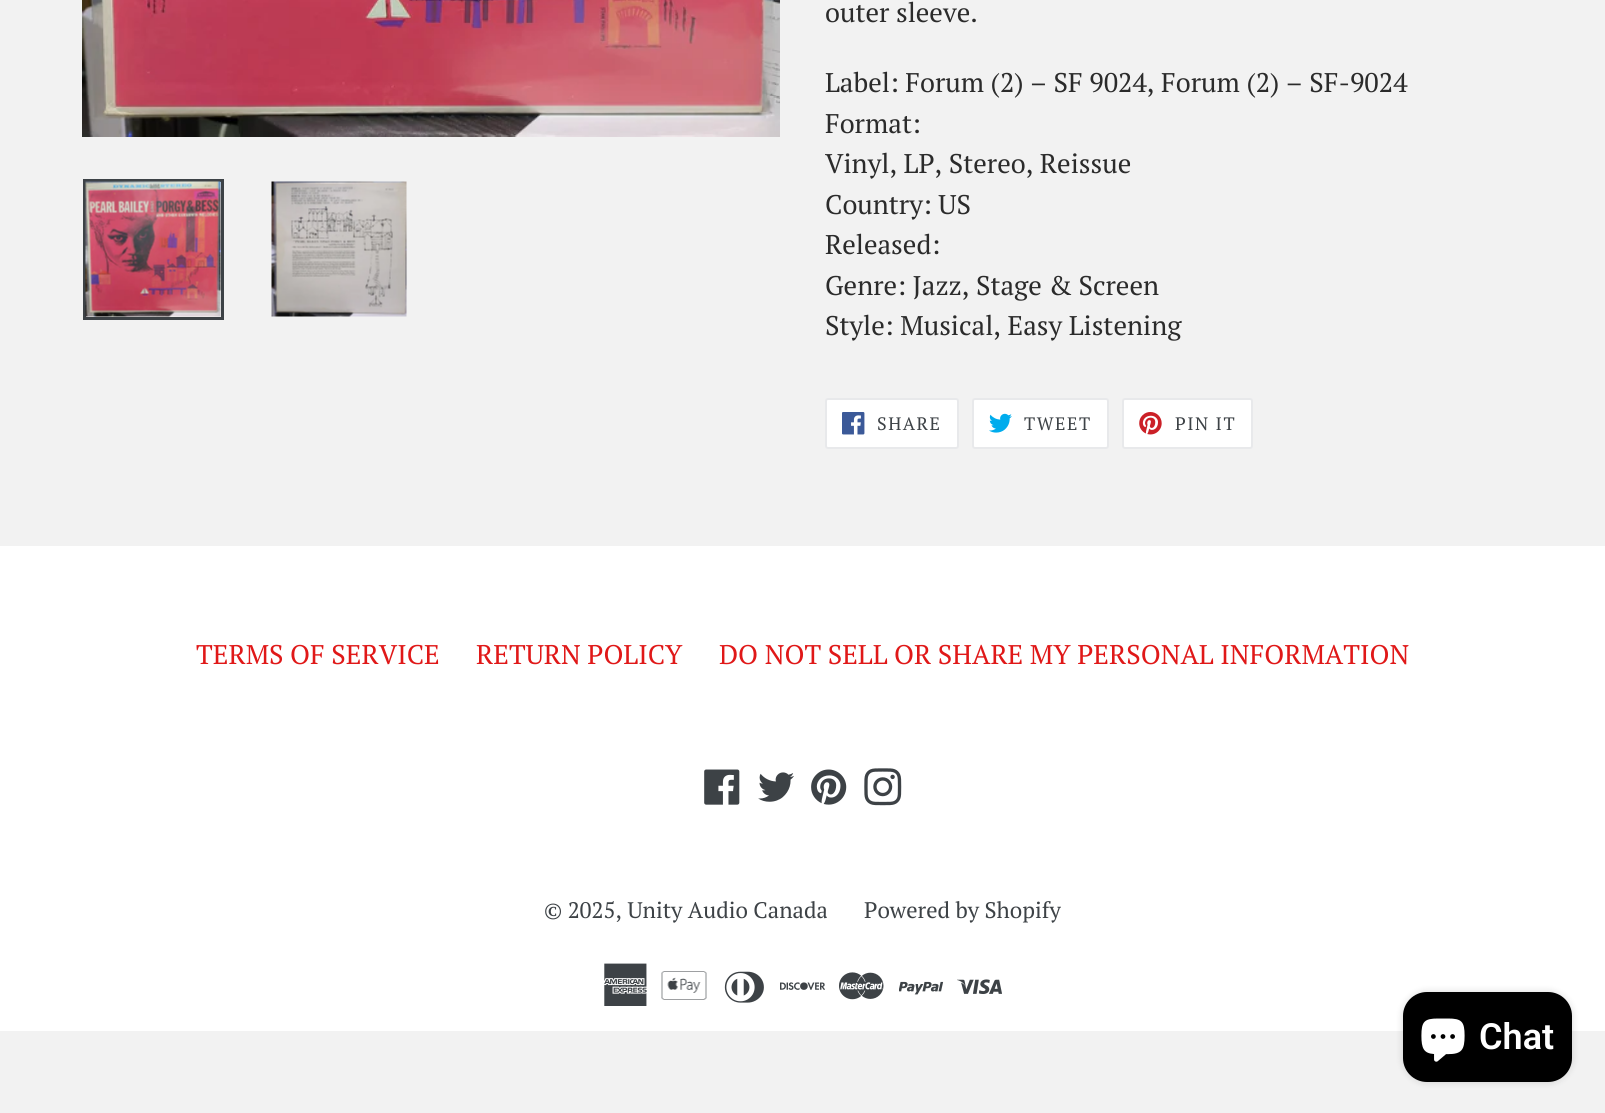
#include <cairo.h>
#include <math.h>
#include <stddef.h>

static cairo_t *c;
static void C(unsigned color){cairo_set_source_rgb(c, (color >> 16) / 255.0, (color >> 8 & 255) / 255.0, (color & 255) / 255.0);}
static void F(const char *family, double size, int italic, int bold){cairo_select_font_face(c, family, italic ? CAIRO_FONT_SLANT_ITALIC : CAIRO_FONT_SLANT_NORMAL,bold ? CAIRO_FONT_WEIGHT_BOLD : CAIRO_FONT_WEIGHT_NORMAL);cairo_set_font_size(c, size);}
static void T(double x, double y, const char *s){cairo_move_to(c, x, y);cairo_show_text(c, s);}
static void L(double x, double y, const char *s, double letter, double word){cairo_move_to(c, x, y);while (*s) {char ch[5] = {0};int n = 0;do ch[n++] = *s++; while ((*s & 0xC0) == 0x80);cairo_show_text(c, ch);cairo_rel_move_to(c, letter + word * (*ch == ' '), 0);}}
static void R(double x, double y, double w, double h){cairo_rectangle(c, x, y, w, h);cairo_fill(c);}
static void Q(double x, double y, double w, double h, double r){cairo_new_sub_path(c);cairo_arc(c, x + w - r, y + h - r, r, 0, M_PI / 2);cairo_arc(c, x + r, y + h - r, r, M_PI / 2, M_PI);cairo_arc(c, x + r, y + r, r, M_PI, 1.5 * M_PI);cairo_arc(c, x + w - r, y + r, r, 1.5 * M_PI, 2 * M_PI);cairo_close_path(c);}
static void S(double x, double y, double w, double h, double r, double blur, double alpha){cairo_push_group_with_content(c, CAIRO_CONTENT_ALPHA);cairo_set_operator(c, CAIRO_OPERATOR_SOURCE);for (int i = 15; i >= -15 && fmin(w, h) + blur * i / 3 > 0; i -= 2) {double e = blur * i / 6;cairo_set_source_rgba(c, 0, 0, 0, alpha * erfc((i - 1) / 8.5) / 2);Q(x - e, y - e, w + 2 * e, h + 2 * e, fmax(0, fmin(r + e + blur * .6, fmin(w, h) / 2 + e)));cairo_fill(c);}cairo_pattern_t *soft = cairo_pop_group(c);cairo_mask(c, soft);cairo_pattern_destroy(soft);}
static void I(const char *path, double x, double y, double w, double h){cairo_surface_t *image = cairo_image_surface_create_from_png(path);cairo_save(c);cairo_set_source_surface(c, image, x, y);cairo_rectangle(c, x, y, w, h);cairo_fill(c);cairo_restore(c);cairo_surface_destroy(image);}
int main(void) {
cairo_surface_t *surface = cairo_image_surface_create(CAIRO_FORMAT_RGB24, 1605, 1113);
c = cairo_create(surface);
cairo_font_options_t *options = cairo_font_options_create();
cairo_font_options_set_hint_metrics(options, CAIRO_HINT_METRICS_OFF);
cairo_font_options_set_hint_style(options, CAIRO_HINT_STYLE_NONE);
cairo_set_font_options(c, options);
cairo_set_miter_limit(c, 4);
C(0xf2f2f2);
cairo_paint(c);
I("1.png",82,0,698,137);
cairo_rectangle(c,84.5,180.5,138,138);
C(0x3d4246);
cairo_set_line_width(c,3);
cairo_stroke(c);
I("2.png",85,181,136,136);
I("3.png",271,181,136,136);
F("PT Serif",27,0,0);
C(0x2b2b2b);
T(825,22,"outer sleeve.");
T(825,92,"Label: Forum (2) – SF 9024, Forum (2) – SF-9024");
T(825,133,"Format:");
T(825,173,"Vinyl, LP, Stereo, Reissue");
T(825,214,"Country: US");
T(825,254,"Released:");
T(825,295,"Genre: Jazz, Stage & Screen");
T(825,335,"Style: Musical, Easy Listening");
C(0xffffff);
Q(826,399,132,49,2);
cairo_fill_preserve(c);
C(0xe8e9eb);
cairo_set_line_width(c,2);
cairo_stroke(c);
I("4.png",842,412,23,23);
F("PT Serif",18,0,0);
C(0x3d4246);
L(877,430,"SHARE",1.5,0);
C(0xffffff);
Q(973,399,135,49,2);
cairo_fill_preserve(c);
C(0xe8e9eb);
cairo_stroke(c);
I("5.png",989,413,23,20);
C(0x3d4246);
L(1024,430,"TWEET",1.5,0);
C(0xffffff);
Q(1123,399,129,49,2);
cairo_fill_preserve(c);
C(0xe8e9eb);
cairo_stroke(c);
I("6.png",1139,412,23,23);
C(0x3d4246);
L(1175,430,"PIN IT",1.5,0);
C(0xffffff);
R(0,546,1605,485);
F("PT Serif",27,0,0);
C(0xe01818);
T(196,664,"TERMS OF SERVICE");
T(476,664,"RETURN POLICY");
T(719,664,"DO NOT SELL OR SHARE MY PERSONAL INFORMATION");
I("7.png",704,769,36,36);
I("8.png",758,772,36,30);
I("9.png",811,769,36,36);
I("10.png",864,768,38,38);
F("PT Serif",22.5,0,0);
C(0x3d4246);
T(544,918,"© 2025, Unity Audio Canada");
T(864,918,"Powered by Shopify");
I("11.png",604,963,43,43);
I("12.png",661,971,46,29);
I("13.png",724,971,40,32);
I("14.png",780,982,45,8);
I("15.png",839,972,45,28);
I("16.png",899,981,45,14);
I("17.png",957,979,45,15);
C(0x000000);
S(1403,992,169,90,24,4,.15);
C(0x000000);
Q(1403,992,169,90,24);
cairo_fill(c);
I("18.png",1421,1018,44,44);
F("Roboto SemiBold",36,0,0);
C(0xffffff);
T(1479,1049,"Chat");
cairo_surface_write_to_png(surface, "o.png");
cairo_font_options_destroy(options);
cairo_destroy(c);
cairo_surface_destroy(surface);
return 0;
}
